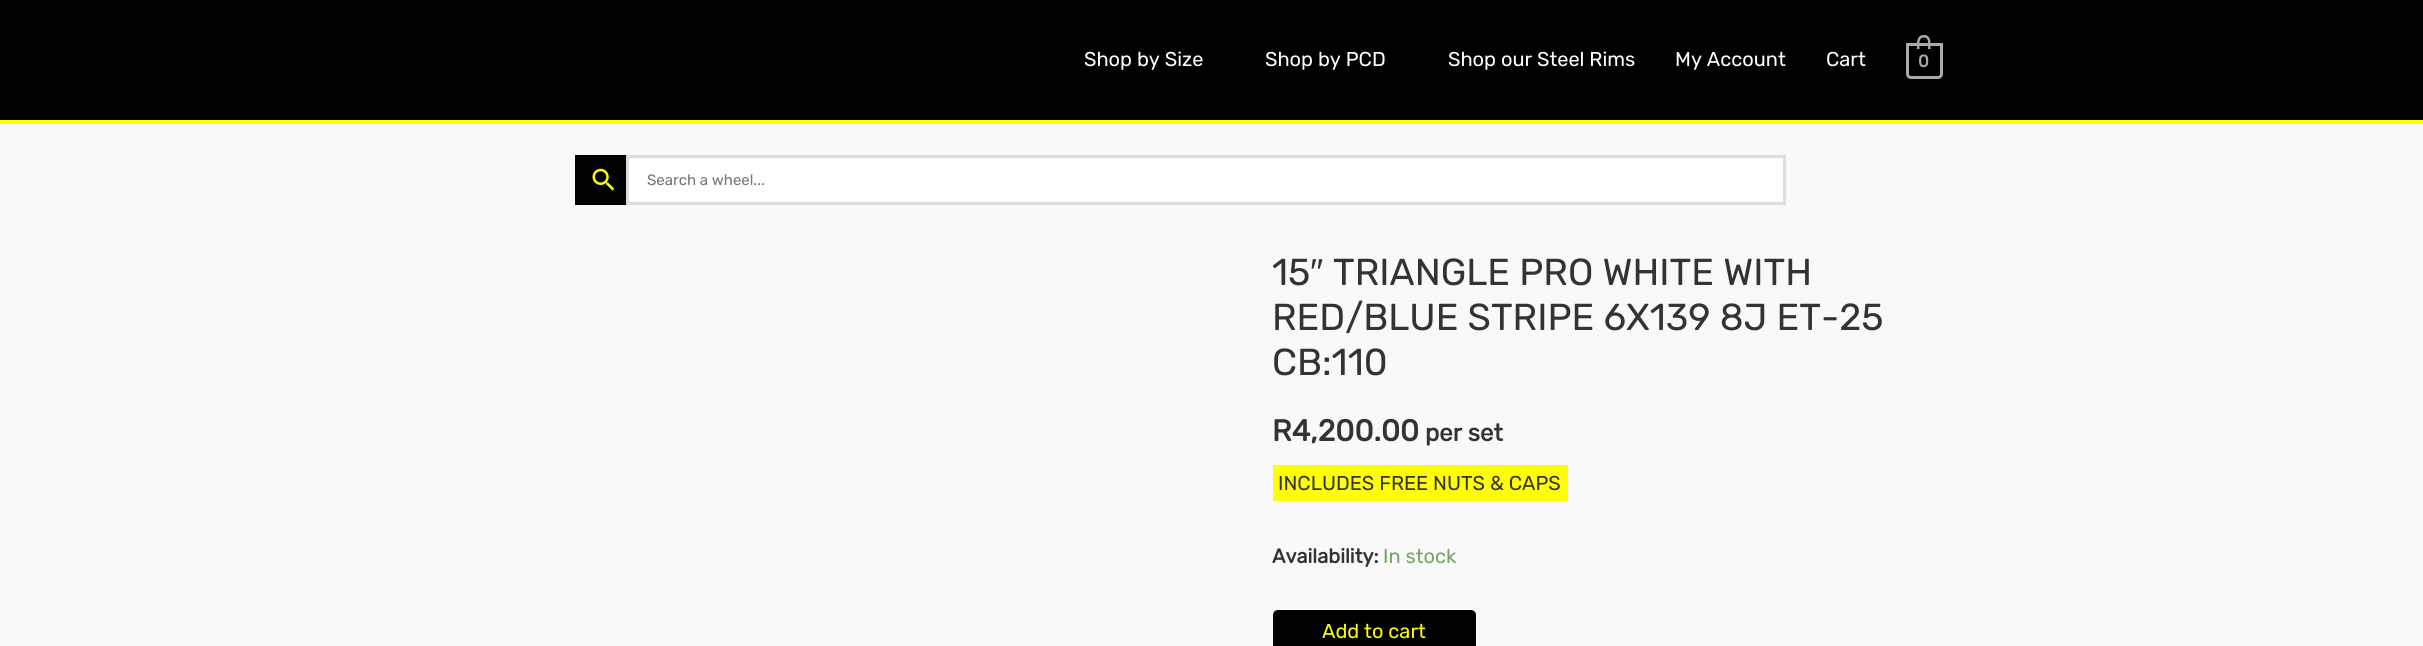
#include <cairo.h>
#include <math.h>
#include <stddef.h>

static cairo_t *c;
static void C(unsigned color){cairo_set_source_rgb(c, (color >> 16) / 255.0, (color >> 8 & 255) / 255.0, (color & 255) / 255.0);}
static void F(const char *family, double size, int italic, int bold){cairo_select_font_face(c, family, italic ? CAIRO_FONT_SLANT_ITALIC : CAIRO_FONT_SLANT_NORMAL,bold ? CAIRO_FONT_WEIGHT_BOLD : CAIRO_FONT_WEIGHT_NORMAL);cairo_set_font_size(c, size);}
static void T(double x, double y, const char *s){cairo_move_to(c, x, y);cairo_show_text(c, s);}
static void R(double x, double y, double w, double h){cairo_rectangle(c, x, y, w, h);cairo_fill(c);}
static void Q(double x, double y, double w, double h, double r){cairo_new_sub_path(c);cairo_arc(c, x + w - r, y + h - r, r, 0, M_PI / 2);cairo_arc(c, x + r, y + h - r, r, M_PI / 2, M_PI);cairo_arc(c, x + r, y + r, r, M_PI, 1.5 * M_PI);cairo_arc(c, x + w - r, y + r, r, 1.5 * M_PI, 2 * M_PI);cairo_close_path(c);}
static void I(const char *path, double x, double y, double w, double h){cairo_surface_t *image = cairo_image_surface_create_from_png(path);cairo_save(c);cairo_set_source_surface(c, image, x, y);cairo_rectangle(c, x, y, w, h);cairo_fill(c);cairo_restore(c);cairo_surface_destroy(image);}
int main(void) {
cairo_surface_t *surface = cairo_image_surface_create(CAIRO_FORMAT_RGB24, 2423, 646);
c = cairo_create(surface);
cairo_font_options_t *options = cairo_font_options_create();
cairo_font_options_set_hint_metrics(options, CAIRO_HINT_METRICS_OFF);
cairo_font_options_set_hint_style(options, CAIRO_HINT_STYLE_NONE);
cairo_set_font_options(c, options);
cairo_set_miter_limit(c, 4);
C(0xf9f9f9);
cairo_paint(c);
C(0x000000);
R(0,0,2423,120);
C(0xffff00);
R(0,120,2423,4);
F("Rubik Light",20,0,0);
C(0xffffff);
T(1084,66,"Shop by Size");
T(1265,66,"Shop by PCD");
T(1448,66,"Shop our Steel Rims");
T(1675,66,"My Account");
T(1826,66,"Cart");
cairo_new_path(c);
cairo_move_to(c,1907.5,44.5);
cairo_line_to(c,1941.5,44.5);
cairo_line_to(c,1941.5,74);
cairo_curve_to(c,1941.5,76,1940,77.5,1938,77.5);
cairo_line_to(c,1911,77.5);
cairo_curve_to(c,1909,77.5,1907.5,76,1907.5,74);
cairo_close_path(c);
C(0xaaaaaa);
cairo_set_line_width(c,3);
cairo_stroke(c);
cairo_set_fill_rule(c,CAIRO_FILL_RULE_EVEN_ODD);
cairo_new_path(c);
cairo_move_to(c,1924,35);
cairo_curve_to(c,1931.5,35,1930.5,43.5,1930.5,49);
cairo_line_to(c,1917,49);
cairo_curve_to(c,1917,43.5,1916,35,1924,35);
cairo_close_path(c);
cairo_move_to(c,1924,37.5);
cairo_curve_to(c,1929.5,37.5,1928,45,1928,49);
cairo_line_to(c,1919.5,49);
cairo_curve_to(c,1919.5,45,1918,37.5,1924,37.5);
cairo_close_path(c);
cairo_fill(c);
F("Rubik",17,0,1);
T(1918,67,"0");
C(0x000000);
R(575,155,51,50);
I("1.png",592,168,23,23);
C(0xffffff);
cairo_rectangle(c,627.5,156.5,1157,47);
cairo_fill_preserve(c);
C(0xdddddd);
cairo_stroke(c);
F("Rubik Light",15,0,0);
C(0x757575);
T(647,185,"Search a wheel...");
F("Rubik Light",37.5,0,0);
C(0x333333);
T(1272,285,"15");
F("Liberation Sans",37.5,0,0);
T(1310,285,"″");
F("Rubik Light",37.5,0,0);
T(1333,285,"TRIANGLE PRO WHITE WITH");
T(1272,330,"RED/BLUE STRIPE 6X139 8J ET-25");
T(1272,375,"CB:110");
F("Rubik",30,0,1);
T(1272,441,"R4,200.00");
F("Rubik",24,0,1);
T(1425,441,"per set");
C(0xffff00);
R(1273,465,295,36);
F("Rubik Light",20,0,0);
C(0x333333);
T(1278,490,"INCLUDES FREE NUTS & CAPS");
F("Rubik",20,0,1);
T(1272,563,"Availability:");
F("Rubik Light",20,0,0);
C(0x77a464);
T(1383,563,"In stock");
C(0x000000);
Q(1273,610,203,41,5);
cairo_fill(c);
C(0xffff00);
T(1322,638,"Add to cart");
cairo_surface_write_to_png(surface, "o.png");
cairo_font_options_destroy(options);
cairo_destroy(c);
cairo_surface_destroy(surface);
return 0;
}
